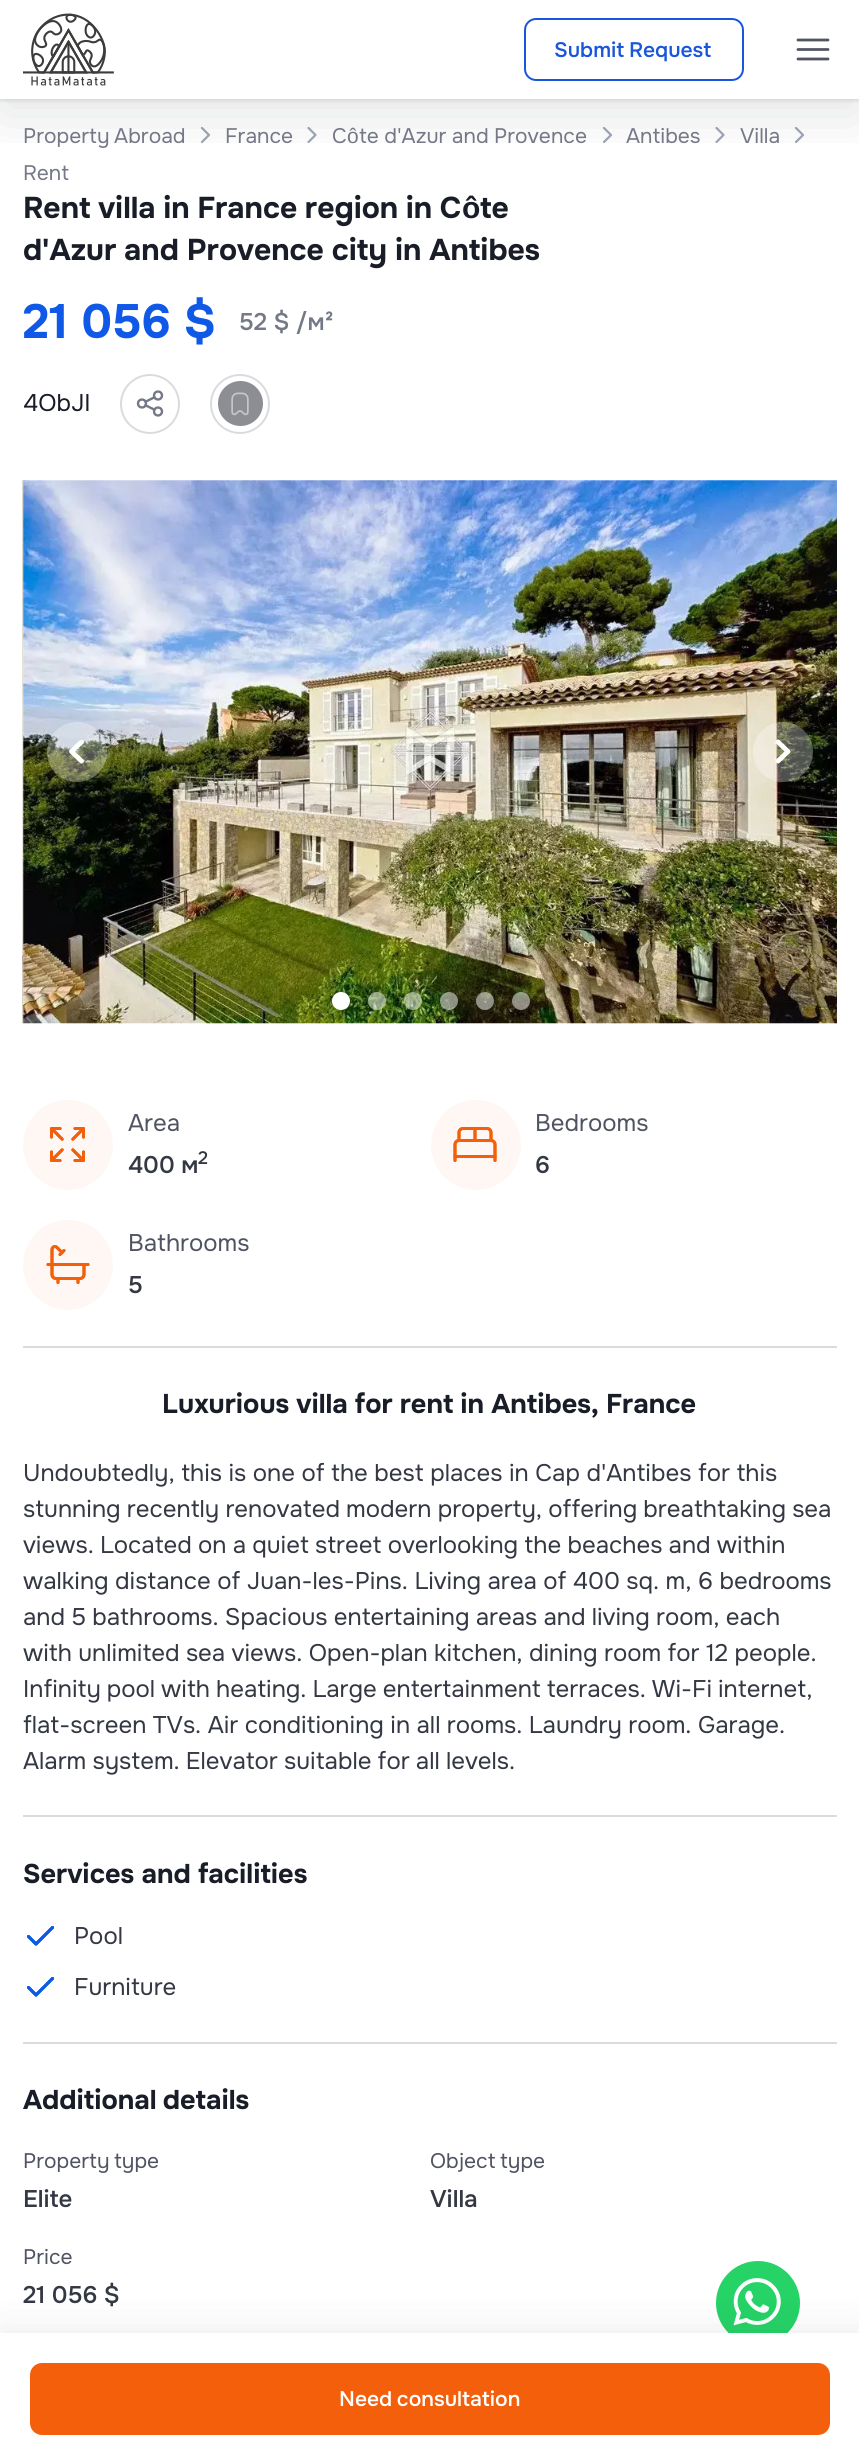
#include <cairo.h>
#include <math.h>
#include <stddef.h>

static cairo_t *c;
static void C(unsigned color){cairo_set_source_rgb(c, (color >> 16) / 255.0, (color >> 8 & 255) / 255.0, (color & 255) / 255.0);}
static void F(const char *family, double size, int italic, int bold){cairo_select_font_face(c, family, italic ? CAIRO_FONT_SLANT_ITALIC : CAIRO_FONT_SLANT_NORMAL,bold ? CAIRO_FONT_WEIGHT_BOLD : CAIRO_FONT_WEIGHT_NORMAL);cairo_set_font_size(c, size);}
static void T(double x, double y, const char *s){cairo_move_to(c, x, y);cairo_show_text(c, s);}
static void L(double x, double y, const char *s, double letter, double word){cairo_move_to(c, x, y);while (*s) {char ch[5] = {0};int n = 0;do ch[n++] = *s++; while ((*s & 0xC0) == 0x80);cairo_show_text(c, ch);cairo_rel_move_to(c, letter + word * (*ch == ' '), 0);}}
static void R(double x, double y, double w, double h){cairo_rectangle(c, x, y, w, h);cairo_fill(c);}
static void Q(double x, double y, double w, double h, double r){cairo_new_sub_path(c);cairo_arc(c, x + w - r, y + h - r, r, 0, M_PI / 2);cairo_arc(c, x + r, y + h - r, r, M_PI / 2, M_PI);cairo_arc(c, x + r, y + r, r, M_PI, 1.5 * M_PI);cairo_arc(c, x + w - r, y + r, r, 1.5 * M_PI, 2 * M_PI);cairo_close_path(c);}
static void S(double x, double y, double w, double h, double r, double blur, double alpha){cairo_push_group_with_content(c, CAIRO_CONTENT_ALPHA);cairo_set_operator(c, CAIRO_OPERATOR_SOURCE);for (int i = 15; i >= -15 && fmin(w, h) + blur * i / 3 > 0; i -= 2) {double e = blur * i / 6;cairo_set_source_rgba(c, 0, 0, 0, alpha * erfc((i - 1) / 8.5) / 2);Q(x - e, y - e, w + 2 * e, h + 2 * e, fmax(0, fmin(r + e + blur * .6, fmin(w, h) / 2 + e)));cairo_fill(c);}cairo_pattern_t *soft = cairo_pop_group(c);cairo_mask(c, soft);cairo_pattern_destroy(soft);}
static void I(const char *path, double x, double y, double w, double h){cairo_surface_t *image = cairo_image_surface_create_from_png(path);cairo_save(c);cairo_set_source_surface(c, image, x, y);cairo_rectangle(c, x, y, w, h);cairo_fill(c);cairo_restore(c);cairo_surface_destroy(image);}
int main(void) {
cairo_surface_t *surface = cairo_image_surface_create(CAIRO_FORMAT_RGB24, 859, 2464);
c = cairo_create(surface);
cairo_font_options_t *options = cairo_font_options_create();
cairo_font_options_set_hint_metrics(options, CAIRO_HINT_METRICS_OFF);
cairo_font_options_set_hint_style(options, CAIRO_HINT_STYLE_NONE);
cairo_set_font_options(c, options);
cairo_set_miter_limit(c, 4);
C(0xffffff);
cairo_paint(c);
cairo_save(c);
cairo_rectangle(c,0,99,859,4);
cairo_clip(c);
C(0x000000);
S(0,2,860,99,0,2,.1);
cairo_restore(c);
cairo_new_path(c);
cairo_move_to(c,202,128);
cairo_line_to(c,209,135);
cairo_line_to(c,202,142);
C(0x9ea5b3);
cairo_set_line_width(c,2.2);
cairo_set_line_cap(c,CAIRO_LINE_CAP_ROUND);
cairo_set_line_join(c,CAIRO_LINE_JOIN_ROUND);
cairo_stroke(c);
cairo_new_path(c);
cairo_move_to(c,308.5,128);
cairo_line_to(c,315.5,135);
cairo_line_to(c,308.5,142);
cairo_stroke(c);
cairo_new_path(c);
cairo_move_to(c,604,128);
cairo_line_to(c,611,135);
cairo_line_to(c,604,142);
cairo_stroke(c);
cairo_new_path(c);
cairo_move_to(c,716.5,128);
cairo_line_to(c,723.5,135);
cairo_line_to(c,716.5,142);
cairo_stroke(c);
cairo_new_path(c);
cairo_move_to(c,796,128);
cairo_line_to(c,803,135);
cairo_line_to(c,796,142);
cairo_stroke(c);
cairo_save(c);
cairo_rectangle(c,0,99,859,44);
cairo_clip(c);
C(0x181a20);
S(0,15,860,99,0,30,.12);
cairo_restore(c);
I("1.png",23,13,91,73);
Q(525,19,218,61,11);
C(0x1a56db);
cairo_set_line_width(c,2);
cairo_set_line_cap(c,CAIRO_LINE_CAP_BUTT);
cairo_set_line_join(c,CAIRO_LINE_JOIN_MITER);
cairo_stroke(c);
F("Onest Medium",21,0,0);
L(554,57,"Submit Request",0,-1);
cairo_new_path(c);
cairo_move_to(c,798,49.5);
cairo_line_to(c,828,49.5);
cairo_move_to(c,798,59);
cairo_line_to(c,828,59);
cairo_move_to(c,798,40);
cairo_line_to(c,828,40);
C(0x505462);
cairo_set_line_width(c,2.8);
cairo_set_line_cap(c,CAIRO_LINE_CAP_ROUND);
cairo_set_line_join(c,CAIRO_LINE_JOIN_ROUND);
cairo_stroke(c);
C(0x25d366);
cairo_arc(c,758,2303,42,0,2 * M_PI);
cairo_fill(c);
I("2.png",733,2278,48,48);
F("Onest",21,0,0);
C(0x747887);
L(23,143,"Property Abroad",0,-1);
T(225,143,"France");
T(332,143,"C");
F("Liberation Sans",21,0,0);
T(347,143,"ô");
F("Onest",21,0,0);
L(359,143,"te d'Azur and Provence",0,-.25);
T(626,143,"Antibes");
T(740,143,"Villa");
T(23,180,"Rent");
F("Onest",30,0,1);
C(0x191d28);
L(23,218,"Rent villa in France region in C",0,-.5);
F("Liberation Sans",30,0,1);
T(462,218,"ô");
F("Onest",30,0,1);
T(480,218,"te");
L(23,260,"d'Azur and Provence city in Antibes",0,-.25);
F("Onest",48,0,1);
C(0x1059e7);
T(23,338,"21 056 $");
F("Onest Medium",24,0,0);
C(0x747887);
T(239,330,"52 $ /м²");
F("Onest",24,0,0);
C(0x191d28);
T(23,411,"4ObJI");
cairo_new_path(c);
cairo_arc(c,150,404,29,0,2 * M_PI);
C(0xdadbdf);
cairo_set_line_width(c,2);
cairo_set_line_cap(c,CAIRO_LINE_CAP_BUTT);
cairo_set_line_join(c,CAIRO_LINE_JOIN_MITER);
cairo_stroke(c);
I("3.png",136,390,28,27);
cairo_arc(c,240,404,29,0,2 * M_PI);
cairo_stroke(c);
C(0x8c8e94);
cairo_arc(c,240.5,403.5,22.5,0,2 * M_PI);
cairo_fill(c);
I("4.png",231,392,18,24);
I("5.png",22,480,2,544);
I("6.png",23,480,814,544);
cairo_set_source_rgba(c,1,1,1,0.3);
cairo_arc(c,77,752,30,0,2 * M_PI);
cairo_fill(c);
cairo_save(c);
cairo_rectangle(c,65,740,24,24);
cairo_clip(c);
cairo_new_path(c);
cairo_move_to(c,81.5,742);
cairo_line_to(c,71.5,751.5);
cairo_line_to(c,81.5,761);
C(0xffffff);
cairo_set_line_width(c,4.8);
cairo_set_line_cap(c,CAIRO_LINE_CAP_ROUND);
cairo_set_line_join(c,CAIRO_LINE_JOIN_ROUND);
cairo_stroke(c);
cairo_restore(c);
cairo_arc(c,783,752,30,0,2 * M_PI);
cairo_fill(c);
cairo_new_path(c);
cairo_move_to(c,778,761);
cairo_line_to(c,788,751.5);
cairo_line_to(c,778,742);
C(0xffffff);
cairo_set_line_width(c,4.8);
cairo_set_line_cap(c,CAIRO_LINE_CAP_ROUND);
cairo_set_line_join(c,CAIRO_LINE_JOIN_ROUND);
cairo_stroke(c);
cairo_arc(c,341,1001,9,0,2 * M_PI);
cairo_fill(c);
cairo_set_source_rgba(c,1,1,1,0.5);
cairo_arc(c,377,1001,9,0,2 * M_PI);
cairo_fill(c);
cairo_arc(c,413,1001,9,0,2 * M_PI);
cairo_fill(c);
cairo_arc(c,449,1001,9,0,2 * M_PI);
cairo_fill(c);
cairo_arc(c,485,1001,9,0,2 * M_PI);
cairo_fill(c);
cairo_arc(c,521,1001,9,0,2 * M_PI);
cairo_fill(c);
C(0xdadbdf);
R(23,1346,814,2);
C(0xfef7f3);
cairo_arc(c,68,1145,45,0,2 * M_PI);
cairo_fill(c);
I("7.png",50,1127,35,35);
C(0x505462);
T(128,1131,"Area");
F("Onest Medium",24,0,0);
C(0x343843);
T(128,1173,"400 м");
F("Onest Medium",18,0,0);
T(198,1164,"2");
C(0xfef7f3);
cairo_new_path(c);
cairo_arc(c,476,1145,45,0,2 * M_PI);
cairo_fill(c);
I("8.png",453,1127,44,35);
F("Onest",24,0,0);
C(0x505462);
T(535,1131,"Bedrooms");
F("Onest Medium",24,0,0);
C(0x343843);
T(535,1173,"6");
C(0xfef7f3);
cairo_new_path(c);
cairo_arc(c,68,1265,45,0,2 * M_PI);
cairo_fill(c);
I("9.png",46,1245,44,39);
F("Onest",24,0,0);
C(0x505462);
T(128,1251,"Bathrooms");
F("Onest Medium",24,0,0);
C(0x343843);
T(128,1293,"5");
C(0xdadbdf);
R(23,1815,814,2);
F("Onest",27,0,1);
C(0x191d28);
L(162,1413,"Luxurious villa for rent in Antibes, France",0,-.25);
F("Onest",24,0,0);
C(0x343843);
T(23,1481,"Undoubtedly, this is one of the best places in Cap d'Antibes for this");
L(23,1517,"stunning recently renovated modern property, offering breathtaking sea",0,-.25);
L(23,1553,"views. Located on a quiet street overlooking the beaches and within",0,-.25);
T(23,1589,"walking distance of Juan-les-Pins. Living area of 400 sq. m, 6 bedrooms");
L(23,1625,"and 5 bathrooms. Spacious entertaining areas and living room, each",0,-.25);
L(23,1661,"with unlimited sea views. Open-plan kitchen, dining room for 12 people.",0,-.1);
L(23,1697,"Infinity pool with heating. Large entertainment terraces. Wi-Fi internet,",0,-.5);
T(23,1733,"flat-screen TVs. Air conditioning in all rooms. Laundry room. Garage.");
L(23,1769,"Alarm system. Elevator suitable for all levels.",0,-.25);
C(0xdadbdf);
R(23,2042,814,2);
F("Onest",27,0,1);
C(0x191d28);
T(23,1883,"Services and facilities");
cairo_new_path(c);
cairo_move_to(c,52.5,1927.5);
cairo_line_to(c,36,1944);
cairo_line_to(c,28.5,1936.5);
C(0x10c4d2);
cairo_set_line_width(c,3);
cairo_stroke(c);
cairo_new_path(c);
cairo_move_to(c,52.5,1927.5);
cairo_line_to(c,36,1944);
cairo_line_to(c,28.5,1936.5);
C(0x196ccd);
cairo_stroke(c);
cairo_new_path(c);
cairo_move_to(c,52.5,1927.5);
cairo_line_to(c,36,1944);
cairo_line_to(c,28.5,1936.5);
C(0x1059e7);
cairo_stroke(c);
F("Onest",24,0,0);
C(0x343843);
T(74,1944,"Pool");
cairo_new_path(c);
cairo_move_to(c,52.5,1978.5);
cairo_line_to(c,36,1995);
cairo_line_to(c,28.5,1987.5);
C(0x10c4d2);
cairo_stroke(c);
cairo_new_path(c);
cairo_move_to(c,52.5,1978.5);
cairo_line_to(c,36,1995);
cairo_line_to(c,28.5,1987.5);
C(0x196ccd);
cairo_stroke(c);
cairo_new_path(c);
cairo_move_to(c,52.5,1978.5);
cairo_line_to(c,36,1995);
cairo_line_to(c,28.5,1987.5);
C(0x1059e7);
cairo_stroke(c);
C(0x343843);
T(74,1995,"Furniture");
F("Onest",27,0,1);
C(0x191d28);
L(23,2109,"Additional details",0,-1);
F("Onest",21,0,0);
C(0x505462);
L(23,2168,"Property type",0,-1);
F("Onest Medium",24,0,0);
C(0x343843);
T(23,2207,"Elite");
F("Onest",21,0,0);
C(0x505462);
L(430,2168,"Object type",0,-1);
F("Onest Medium",24,0,0);
C(0x343843);
T(430,2207,"Villa");
F("Onest",21,0,0);
C(0x505462);
T(23,2264,"Price");
F("Onest Medium",24,0,0);
C(0x343843);
T(23,2303,"21 056 $");
C(0x181a20);
S(0,2333,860,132,0,19,.1);
C(0xffffff);
R(0,2333,859,131);
C(0xf45f0b);
Q(30,2363,800,72,12);
cairo_fill(c);
F("Onest Medium",21,0,0);
C(0xffffff);
L(339,2406,"Need consultation",0,-1);
cairo_surface_write_to_png(surface, "o.png");
cairo_font_options_destroy(options);
cairo_destroy(c);
cairo_surface_destroy(surface);
return 0;
}
